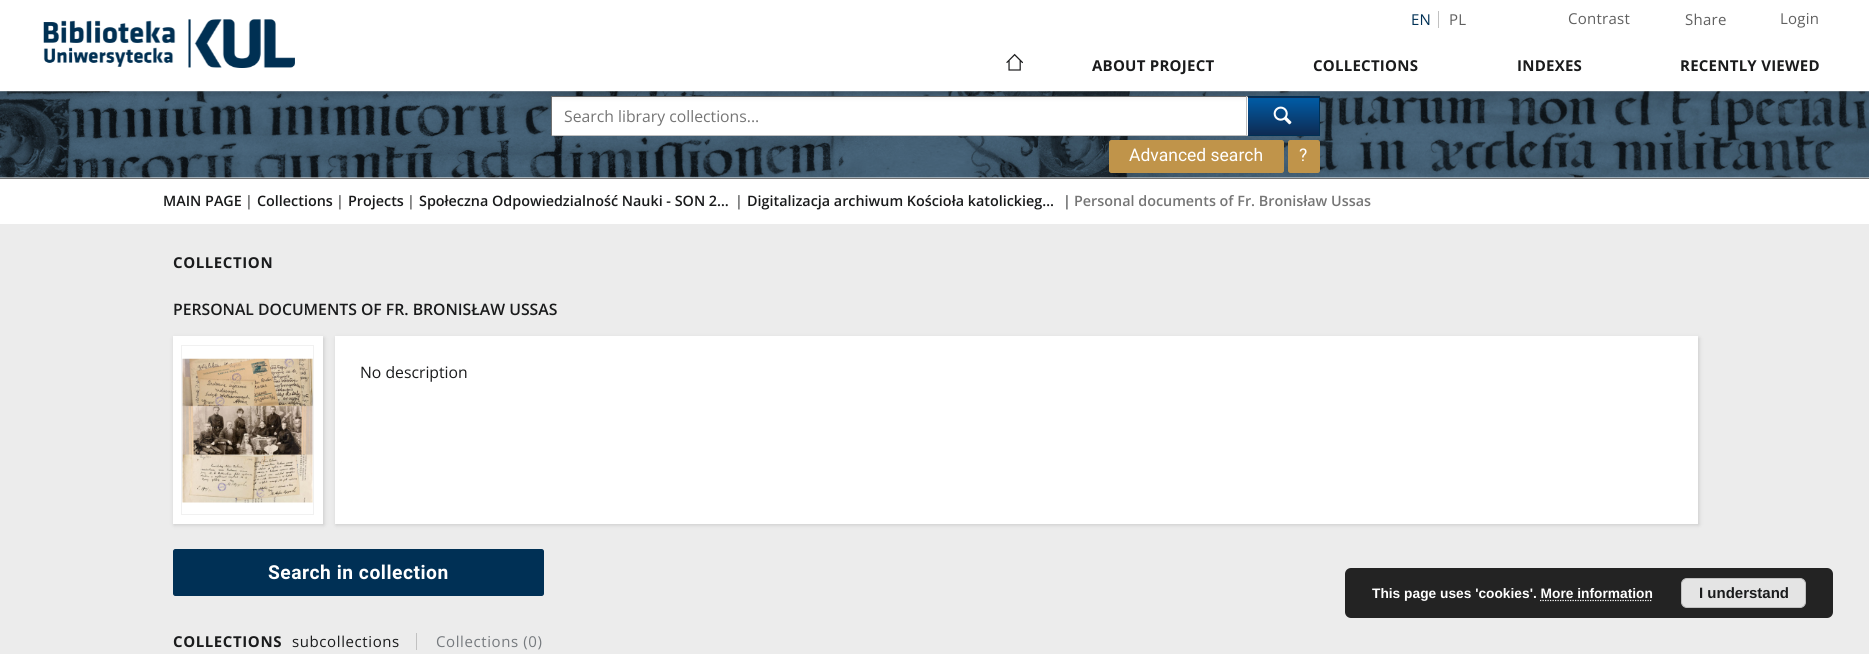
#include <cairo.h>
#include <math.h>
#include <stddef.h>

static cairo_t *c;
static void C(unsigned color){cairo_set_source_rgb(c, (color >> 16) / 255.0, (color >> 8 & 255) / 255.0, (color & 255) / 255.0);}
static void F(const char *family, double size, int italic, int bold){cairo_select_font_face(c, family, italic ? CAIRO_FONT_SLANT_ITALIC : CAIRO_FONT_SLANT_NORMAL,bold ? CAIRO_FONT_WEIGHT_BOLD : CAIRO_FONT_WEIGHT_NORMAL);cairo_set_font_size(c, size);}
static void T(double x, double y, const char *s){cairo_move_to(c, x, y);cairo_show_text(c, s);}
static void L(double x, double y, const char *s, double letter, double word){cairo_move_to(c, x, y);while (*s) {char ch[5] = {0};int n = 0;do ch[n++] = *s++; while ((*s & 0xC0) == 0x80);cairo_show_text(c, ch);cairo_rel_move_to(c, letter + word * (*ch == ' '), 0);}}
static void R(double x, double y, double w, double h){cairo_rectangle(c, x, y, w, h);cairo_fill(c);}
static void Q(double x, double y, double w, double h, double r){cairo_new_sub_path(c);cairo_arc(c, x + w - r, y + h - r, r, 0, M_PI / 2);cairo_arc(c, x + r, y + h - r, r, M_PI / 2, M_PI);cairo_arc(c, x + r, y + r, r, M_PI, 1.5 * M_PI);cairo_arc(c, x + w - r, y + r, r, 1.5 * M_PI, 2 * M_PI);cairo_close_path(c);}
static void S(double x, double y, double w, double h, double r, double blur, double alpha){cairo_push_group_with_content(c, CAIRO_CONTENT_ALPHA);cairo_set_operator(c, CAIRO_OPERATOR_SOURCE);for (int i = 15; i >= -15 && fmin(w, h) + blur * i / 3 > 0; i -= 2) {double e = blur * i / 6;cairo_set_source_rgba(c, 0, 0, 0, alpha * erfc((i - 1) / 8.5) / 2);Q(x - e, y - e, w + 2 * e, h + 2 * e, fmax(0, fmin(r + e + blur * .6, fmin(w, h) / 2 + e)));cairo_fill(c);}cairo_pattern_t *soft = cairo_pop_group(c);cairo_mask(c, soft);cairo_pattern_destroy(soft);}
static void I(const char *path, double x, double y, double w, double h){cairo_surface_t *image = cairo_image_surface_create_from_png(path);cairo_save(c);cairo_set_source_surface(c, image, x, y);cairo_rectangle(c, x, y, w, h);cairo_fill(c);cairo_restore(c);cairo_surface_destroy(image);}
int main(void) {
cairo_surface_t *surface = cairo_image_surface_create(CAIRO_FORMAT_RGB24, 1869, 654);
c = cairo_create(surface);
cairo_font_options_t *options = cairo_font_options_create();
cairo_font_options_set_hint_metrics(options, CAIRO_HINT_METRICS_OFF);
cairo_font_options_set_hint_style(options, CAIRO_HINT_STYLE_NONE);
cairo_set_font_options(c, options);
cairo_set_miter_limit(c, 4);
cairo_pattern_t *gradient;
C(0xf5f5f5);
cairo_paint(c);
I("3.png",0,91,1869,87);
C(0xffffff);
R(552,97,696,38);
C(0x707070);
R(551,96,697,1);
C(0xc1c1c1);
R(1246,96,1,40);
R(551,135,697,1);
C(0x707070);
R(551,96,1,40);
gradient = cairo_pattern_create_linear(1283,60,1283,98);
cairo_pattern_add_color_stop_rgba(gradient,0,0,0.361,0.655,1);
cairo_pattern_add_color_stop_rgba(gradient,1,0.055,0.169,0.322,1);
cairo_set_source(c,gradient);
cairo_pattern_destroy(gradient);
R(1248,97,72,1);
gradient = cairo_pattern_create_linear(1283,98,1283,135);
cairo_pattern_add_color_stop_rgba(gradient,0,0,0.361,0.655,1);
cairo_pattern_add_color_stop_rgba(gradient,1,0.055,0.169,0.322,1);
cairo_set_source(c,gradient);
cairo_pattern_destroy(gradient);
R(1248,98,71,37);
C(0x003055);
R(1248,96,72,1);
R(1319,96,1,40);
I("4.png",1273,106,19,19);
C(0x000000);
S(0,1,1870,92,0,6,.08);
S(0,5,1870,91,0,3,.06);
S(1,4,1868,89,0,2.5,.06);
C(0xffffff);
R(0,0,1869,91);
C(0xc1c1c1);
R(1438,11,1,17);
F("Open Sans",15,0,0);
C(0x003055);
L(1411,25,"EN",.25,0);
C(0x606060);
L(1449,25,"PL",.25,0);
L(1568,24,"Contrast",.25,0);
L(1685,25,"Share",.25,0);
L(1780,24,"Login",.25,0);
I("1.png",43,19,252,49);
I("2.png",1006,53,17,18);
F("Open Sans",15,0,1);
C(0x1a1b1c);
L(1092,71,"ABOUT PROJECT",.25,0);
L(1313,71,"COLLECTIONS",.25,0);
L(1517,71,"INDEXES",.25,0);
L(1680,71,"RECENTLY VIEWED",.25,0);
C(0x707070);
R(0,178,1869,1);
F("Open Sans",15.75,0,0);
C(0x757575);
T(564,122,"Search library collections...");
C(0x003055);
R(1248,135,72,1);
C(0xc0944a);
Q(1109.5,140.5,174,32,2);
cairo_fill_preserve(c);
cairo_set_line_width(c,1);
cairo_stroke(c);
F("Roboto",17.5,0,0);
C(0xffffff);
T(1129,161,"Advanced search");
C(0xc0944a);
Q(1288.5,140.5,31,32,2);
cairo_fill_preserve(c);
cairo_stroke(c);
C(0xffffff);
T(1299,161,"?");
C(0xececec);
R(0,224,1869,430);
C(0xffffff);
R(0,179,1869,45);
F("Open Sans SemiBold",14.35,0,0);
C(0x1a1b1c);
T(163,206,"MAIN PAGE");
F("Open Sans",14.35,0,0);
T(245,206,"|");
F("Open Sans SemiBold",14.35,0,0);
T(257,206,"Collections");
F("Open Sans",14.35,0,0);
T(336,206,"|");
F("Open Sans SemiBold",14.35,0,0);
T(348,206,"Projects");
F("Open Sans",14.35,0,0);
T(407,206,"|");
F("Open Sans SemiBold",14.35,0,0);
T(419,206,"Społeczna Odpowiedzialność Nauki - SON 2…");
F("Open Sans",14.35,0,0);
T(735,206,"|");
F("Open Sans SemiBold",14.35,0,0);
T(747,206,"Digitalizacja archiwum Kościoła katolickieg…");
F("Open Sans",14.35,0,0);
T(1063,206,"|");
F("Open Sans SemiBold",14.35,0,0);
C(0x757575);
T(1074,206,"Personal documents of Fr. Bronisław Ussas");
F("Open Sans",15,0,1);
C(0x1a1b1c);
L(173,268,"COLLECTION",.6,0);
F("Open Sans SemiBold",15.75,0,0);
T(173,315,"PERSONAL DOCUMENTS OF FR. BRONISŁAW USSAS");
C(0xa5a5a5);
S(174,338,150,187,0,2,.5);
C(0xffffff);
R(173,336,150,188);
I("5.png",182,358,131,145);
cairo_rectangle(c,181.5,345.5,132,169);
C(0xf1f1f1);
cairo_stroke(c);
C(0xa5a5a5);
S(336,338,1363,187,0,2,.5);
C(0xffffff);
R(335,336,1363,188);
F("Open Sans",15.75,0,0);
C(0x1a1b1c);
T(360,378,"No description");
C(0x003055);
Q(173.5,549.5,370,46,2);
cairo_fill_preserve(c);
cairo_stroke(c);
F("Roboto",19.25,0,1);
C(0xffffff);
L(268,579,"Search in collection",.5,0);
F("Open Sans",15,0,1);
C(0x1a1b1c);
L(173,647,"COLLECTIONS",.6,0);
F("Open Sans",15,0,0);
L(292,647,"subcollections",.6,0);
C(0xc1c1c1);
R(416,633,1,17);
C(0x767a7e);
L(436,647,"Collections (0)",.6,0);
C(0x232323);
Q(1345,568,488,50,6);
cairo_fill(c);
F("Liberation Sans",13.75,0,1);
C(0xffffff);
T(1372,598,"This page uses 'cookies'. More information");
C(0xe4e4e4);
Q(1681.5,578.5,124,29,5.5);
cairo_fill_preserve(c);
C(0xc1c1c1);
cairo_stroke(c);
F("Liberation Sans",15,0,1);
C(0x1a1b1c);
T(1699,598,"I understand");
cairo_new_path(c);
cairo_move_to(c,1540,600.5);
cairo_line_to(c,1652.5,600.5);
C(0xffffff);
cairo_set_line_width(c,1.2);
cairo_set_dash(c,(double[]){1.25,1.25},2,0);
cairo_stroke(c);
cairo_surface_write_to_png(surface, "o.png");
cairo_font_options_destroy(options);
cairo_destroy(c);
cairo_surface_destroy(surface);
return 0;
}
